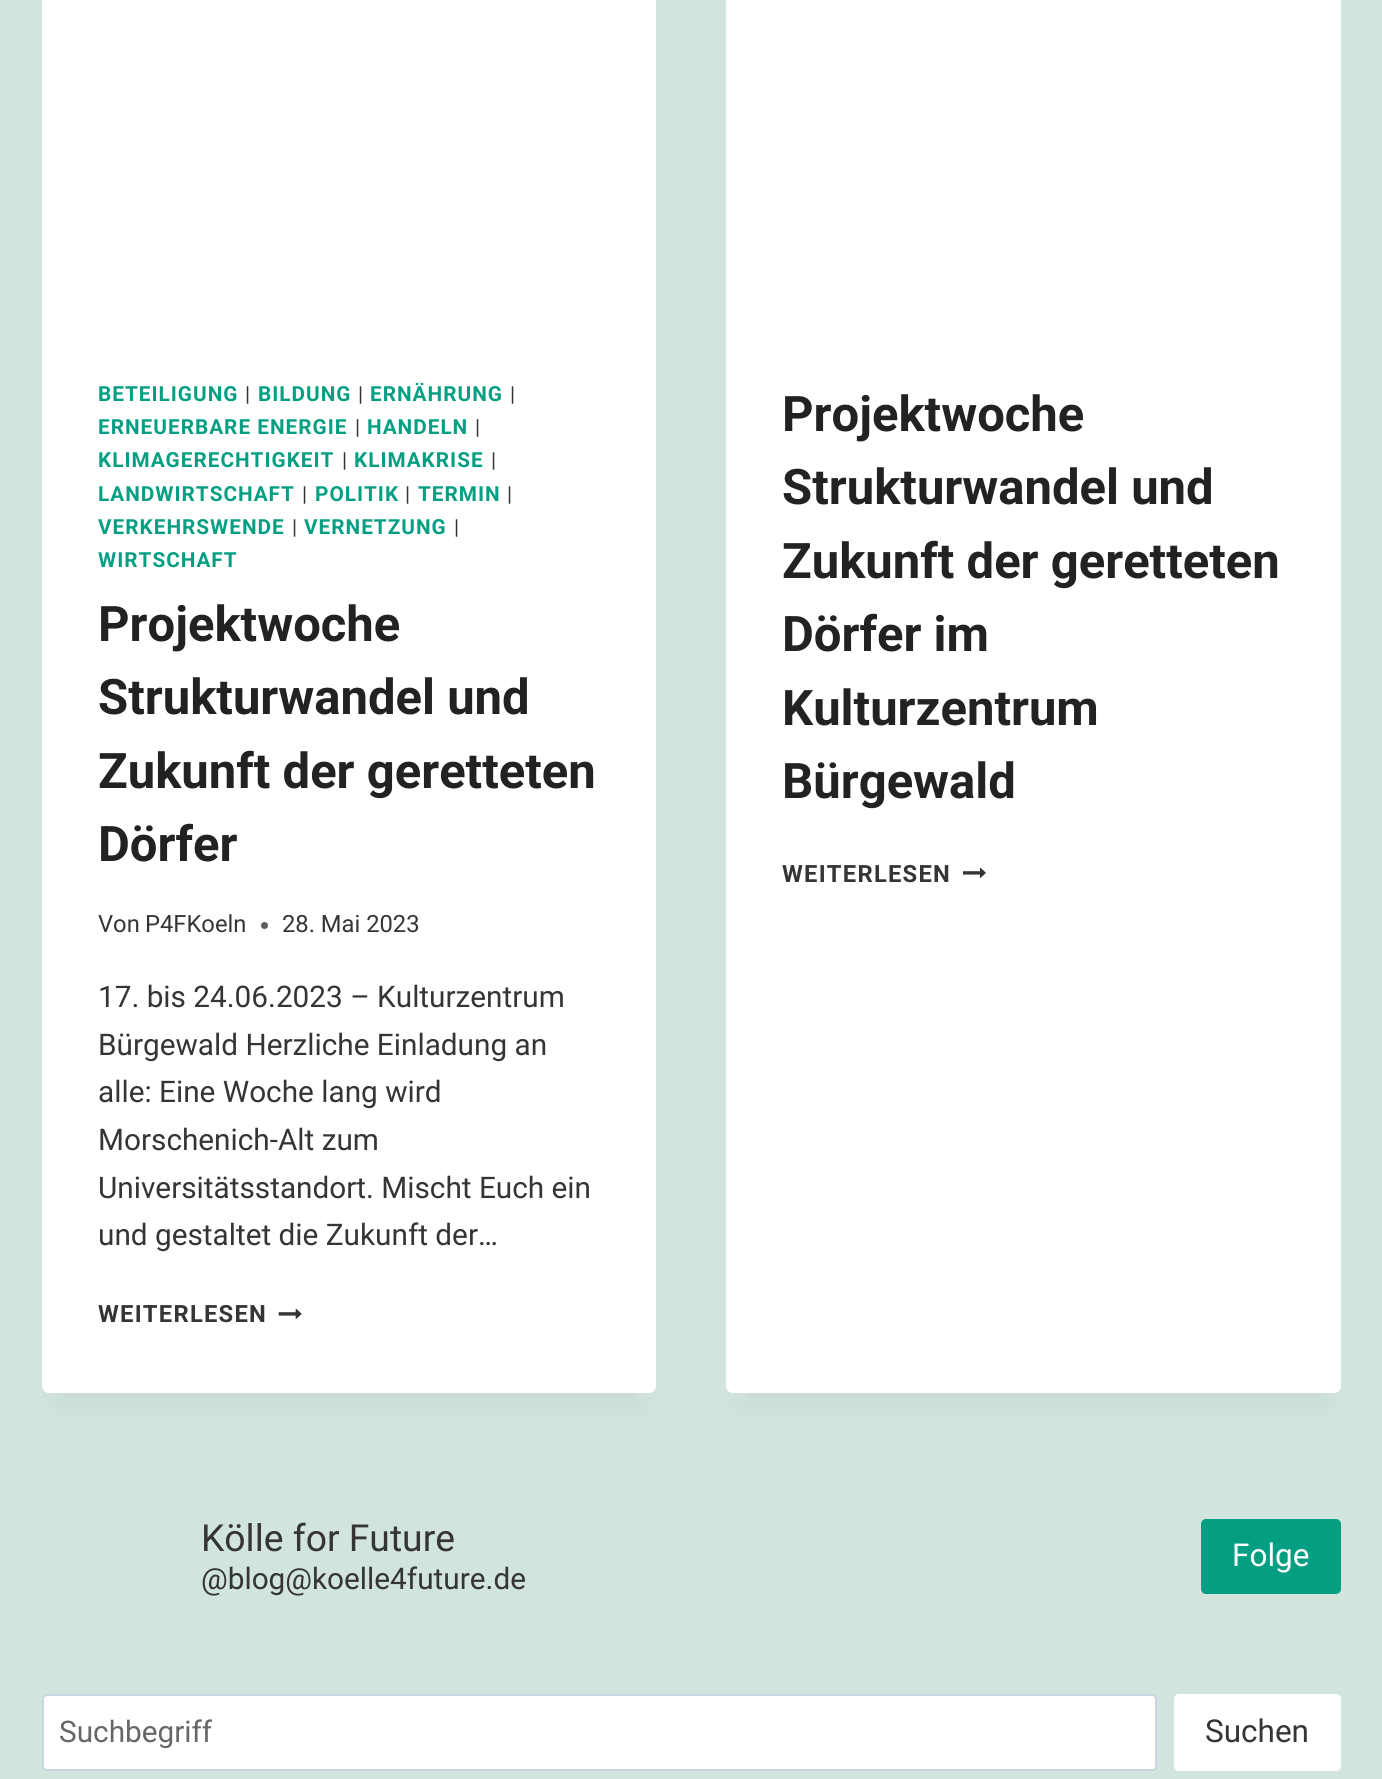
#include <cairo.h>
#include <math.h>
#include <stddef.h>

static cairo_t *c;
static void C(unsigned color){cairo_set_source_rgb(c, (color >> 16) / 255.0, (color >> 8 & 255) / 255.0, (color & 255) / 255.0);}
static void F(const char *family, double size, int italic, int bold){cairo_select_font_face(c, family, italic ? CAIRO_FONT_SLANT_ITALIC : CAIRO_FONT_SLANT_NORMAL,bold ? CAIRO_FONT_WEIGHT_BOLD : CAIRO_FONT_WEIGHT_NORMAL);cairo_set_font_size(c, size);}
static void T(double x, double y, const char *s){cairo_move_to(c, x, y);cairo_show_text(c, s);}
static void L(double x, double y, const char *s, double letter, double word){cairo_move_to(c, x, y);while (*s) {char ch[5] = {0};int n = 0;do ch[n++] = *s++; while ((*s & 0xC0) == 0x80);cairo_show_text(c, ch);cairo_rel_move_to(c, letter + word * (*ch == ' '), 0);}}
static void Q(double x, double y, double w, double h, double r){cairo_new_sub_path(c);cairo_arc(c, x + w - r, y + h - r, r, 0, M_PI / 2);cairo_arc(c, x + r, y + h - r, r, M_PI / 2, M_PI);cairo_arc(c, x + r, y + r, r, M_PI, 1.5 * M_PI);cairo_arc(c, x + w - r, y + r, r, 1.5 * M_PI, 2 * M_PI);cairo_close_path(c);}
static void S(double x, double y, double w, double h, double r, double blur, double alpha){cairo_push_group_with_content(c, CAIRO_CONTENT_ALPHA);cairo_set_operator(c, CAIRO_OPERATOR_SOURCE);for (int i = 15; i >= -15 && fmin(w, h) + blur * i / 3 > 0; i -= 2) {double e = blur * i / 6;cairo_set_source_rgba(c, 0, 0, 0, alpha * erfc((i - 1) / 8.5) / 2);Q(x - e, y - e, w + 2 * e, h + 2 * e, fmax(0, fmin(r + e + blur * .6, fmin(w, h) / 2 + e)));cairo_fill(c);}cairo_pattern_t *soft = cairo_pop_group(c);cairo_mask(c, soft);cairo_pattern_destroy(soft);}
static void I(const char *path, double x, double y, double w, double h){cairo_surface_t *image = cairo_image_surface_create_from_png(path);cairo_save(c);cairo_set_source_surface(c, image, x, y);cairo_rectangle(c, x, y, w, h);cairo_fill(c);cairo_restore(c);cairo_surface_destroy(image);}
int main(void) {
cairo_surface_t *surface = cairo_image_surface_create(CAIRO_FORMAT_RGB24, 1382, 1779);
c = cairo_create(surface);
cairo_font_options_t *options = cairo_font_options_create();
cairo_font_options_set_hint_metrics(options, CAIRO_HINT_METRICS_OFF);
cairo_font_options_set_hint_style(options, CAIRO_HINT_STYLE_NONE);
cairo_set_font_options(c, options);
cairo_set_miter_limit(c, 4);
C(0xd1e4dd);
cairo_paint(c);
C(0x000000);
S(60,-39,579,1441,0,13,.05);
C(0xffffff);
Q(42,-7,614,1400,7);
cairo_fill(c);
F("Roboto",20.75,0,1);
C(0x049f82);
L(98,401,"BETEILIGUNG",1,0);
F("Roboto",20.75,0,0);
C(0x353535);
L(245,401,"|",1,0);
F("Roboto",20.75,0,1);
C(0x049f82);
L(258,401,"BILDUNG",1,0);
F("Roboto",20.75,0,0);
C(0x353535);
L(358,401,"|",1,0);
F("Roboto",20.75,0,1);
C(0x049f82);
L(370,401,"ERNÄHRUNG",1,0);
F("Roboto",20.75,0,0);
C(0x353535);
L(510,401,"|",1,0);
F("Roboto",20.75,0,1);
C(0x049f82);
L(98,434,"ERNEUERBARE ENERGIE",1,0);
F("Roboto",20.75,0,0);
C(0x353535);
L(355,434,"|",1,0);
F("Roboto",20.75,0,1);
C(0x049f82);
L(367,434,"HANDELN",1,0);
F("Roboto",20.75,0,0);
C(0x353535);
L(475,434,"|",1,0);
F("Roboto",20.75,0,1);
C(0x049f82);
L(98,467,"KLIMAGERECHTIGKEIT",1,0);
F("Roboto",20.75,0,0);
C(0x353535);
L(342,467,"|",1,0);
F("Roboto",20.75,0,1);
C(0x049f82);
L(354,467,"KLIMAKRISE",1,0);
F("Roboto",20.75,0,0);
C(0x353535);
L(491,467,"|",1,0);
F("Roboto",20.75,0,1);
C(0x049f82);
L(98,501,"LANDWIRTSCHAFT",1,0);
F("Roboto",20.75,0,0);
C(0x353535);
L(302,501,"|",1,0);
F("Roboto",20.75,0,1);
C(0x049f82);
L(315,501,"POLITIK",1,0);
F("Roboto",20.75,0,0);
C(0x353535);
L(405,501,"|",1,0);
F("Roboto",20.75,0,1);
C(0x049f82);
L(418,501,"TERMIN",1,0);
F("Roboto",20.75,0,0);
C(0x353535);
L(507,501,"|",1,0);
F("Roboto",20.75,0,1);
C(0x049f82);
L(98,534,"VERKEHRSWENDE",1,0);
F("Roboto",20.75,0,0);
C(0x353535);
L(292,534,"|",1,0);
F("Roboto",20.75,0,1);
C(0x049f82);
L(304,534,"VERNETZUNG",1,0);
F("Roboto",20.75,0,0);
C(0x353535);
L(454,534,"|",1,0);
F("Roboto",20.75,0,1);
C(0x049f82);
L(98,567,"WIRTSCHAFT",1,0);
F("Roboto",49,0,1);
C(0x222222);
T(98,641,"Projektwoche");
T(98,714,"Strukturwandel und");
T(98,788,"Zukunft der geretteten");
T(98,861,"Dörfer");
F("Roboto",23.75,0,0);
C(0x353535);
T(98,932,"Von");
T(145,932,"P4FKoeln");
C(0x5d5d5d);
cairo_new_path(c);
cairo_arc(c,264.5,925.5,3.5,0,2 * M_PI);
cairo_fill(c);
C(0x353535);
T(282,932,"28. Mai 2023");
F("Roboto",29.75,0,0);
T(98,1007,"17. bis 24.06.2023 – Kulturzentrum");
T(98,1055,"Bürgewald Herzliche Einladung an");
T(98,1102,"alle: Eine Woche lang wird");
T(98,1150,"Morschenich-Alt zum");
T(98,1198,"Universitätsstandort. Mischt Euch ein");
T(98,1245,"und gestaltet die Zukunft der…");
F("Roboto",23.75,0,1);
L(98,1322,"WEITERLESEN",1.25,0);
I("1.png",278,1308,24,11);
C(0x000000);
S(744,-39,579,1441,0,13,.05);
C(0xffffff);
Q(726,-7,615,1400,7);
cairo_fill(c);
F("Roboto",49,0,1);
C(0x222222);
T(782,431,"Projektwoche");
T(782,504,"Strukturwandel und");
T(782,578,"Zukunft der geretteten");
T(782,651,"Dörfer im");
T(782,725,"Kulturzentrum");
T(782,798,"Bürgewald");
F("Roboto",23.75,0,1);
C(0x353535);
L(782,882,"WEITERLESEN",1.25,0);
I("2.png",963,867,23,11);
F("Roboto",37.25,0,0);
T(201,1551,"Kölle for Future");
F("Roboto",29.75,0,0);
T(201,1589,"@blog@koelle4future.de");
C(0x049f82);
Q(1201,1519,140,75,5);
cairo_fill(c);
F("Roboto",31.5,0,0);
C(0xffffff);
T(1232,1566,"Folge");
Q(43,1695,1113,75,4);
cairo_fill_preserve(c);
C(0xcbd5e0);
cairo_stroke(c);
cairo_save(c);
cairo_rectangle(c,60,1713,1051,35);
cairo_clip(c);
F("Roboto",29.75,0,0);
C(0x676767);
T(59,1742,"Suchbegriff");
cairo_restore(c);
C(0xffffff);
Q(1174,1694,167,77,5);
cairo_fill(c);
C(0x353535);
T(1205,1742,"Suchen");
cairo_surface_write_to_png(surface, "o.png");
cairo_font_options_destroy(options);
cairo_destroy(c);
cairo_surface_destroy(surface);
return 0;
}
